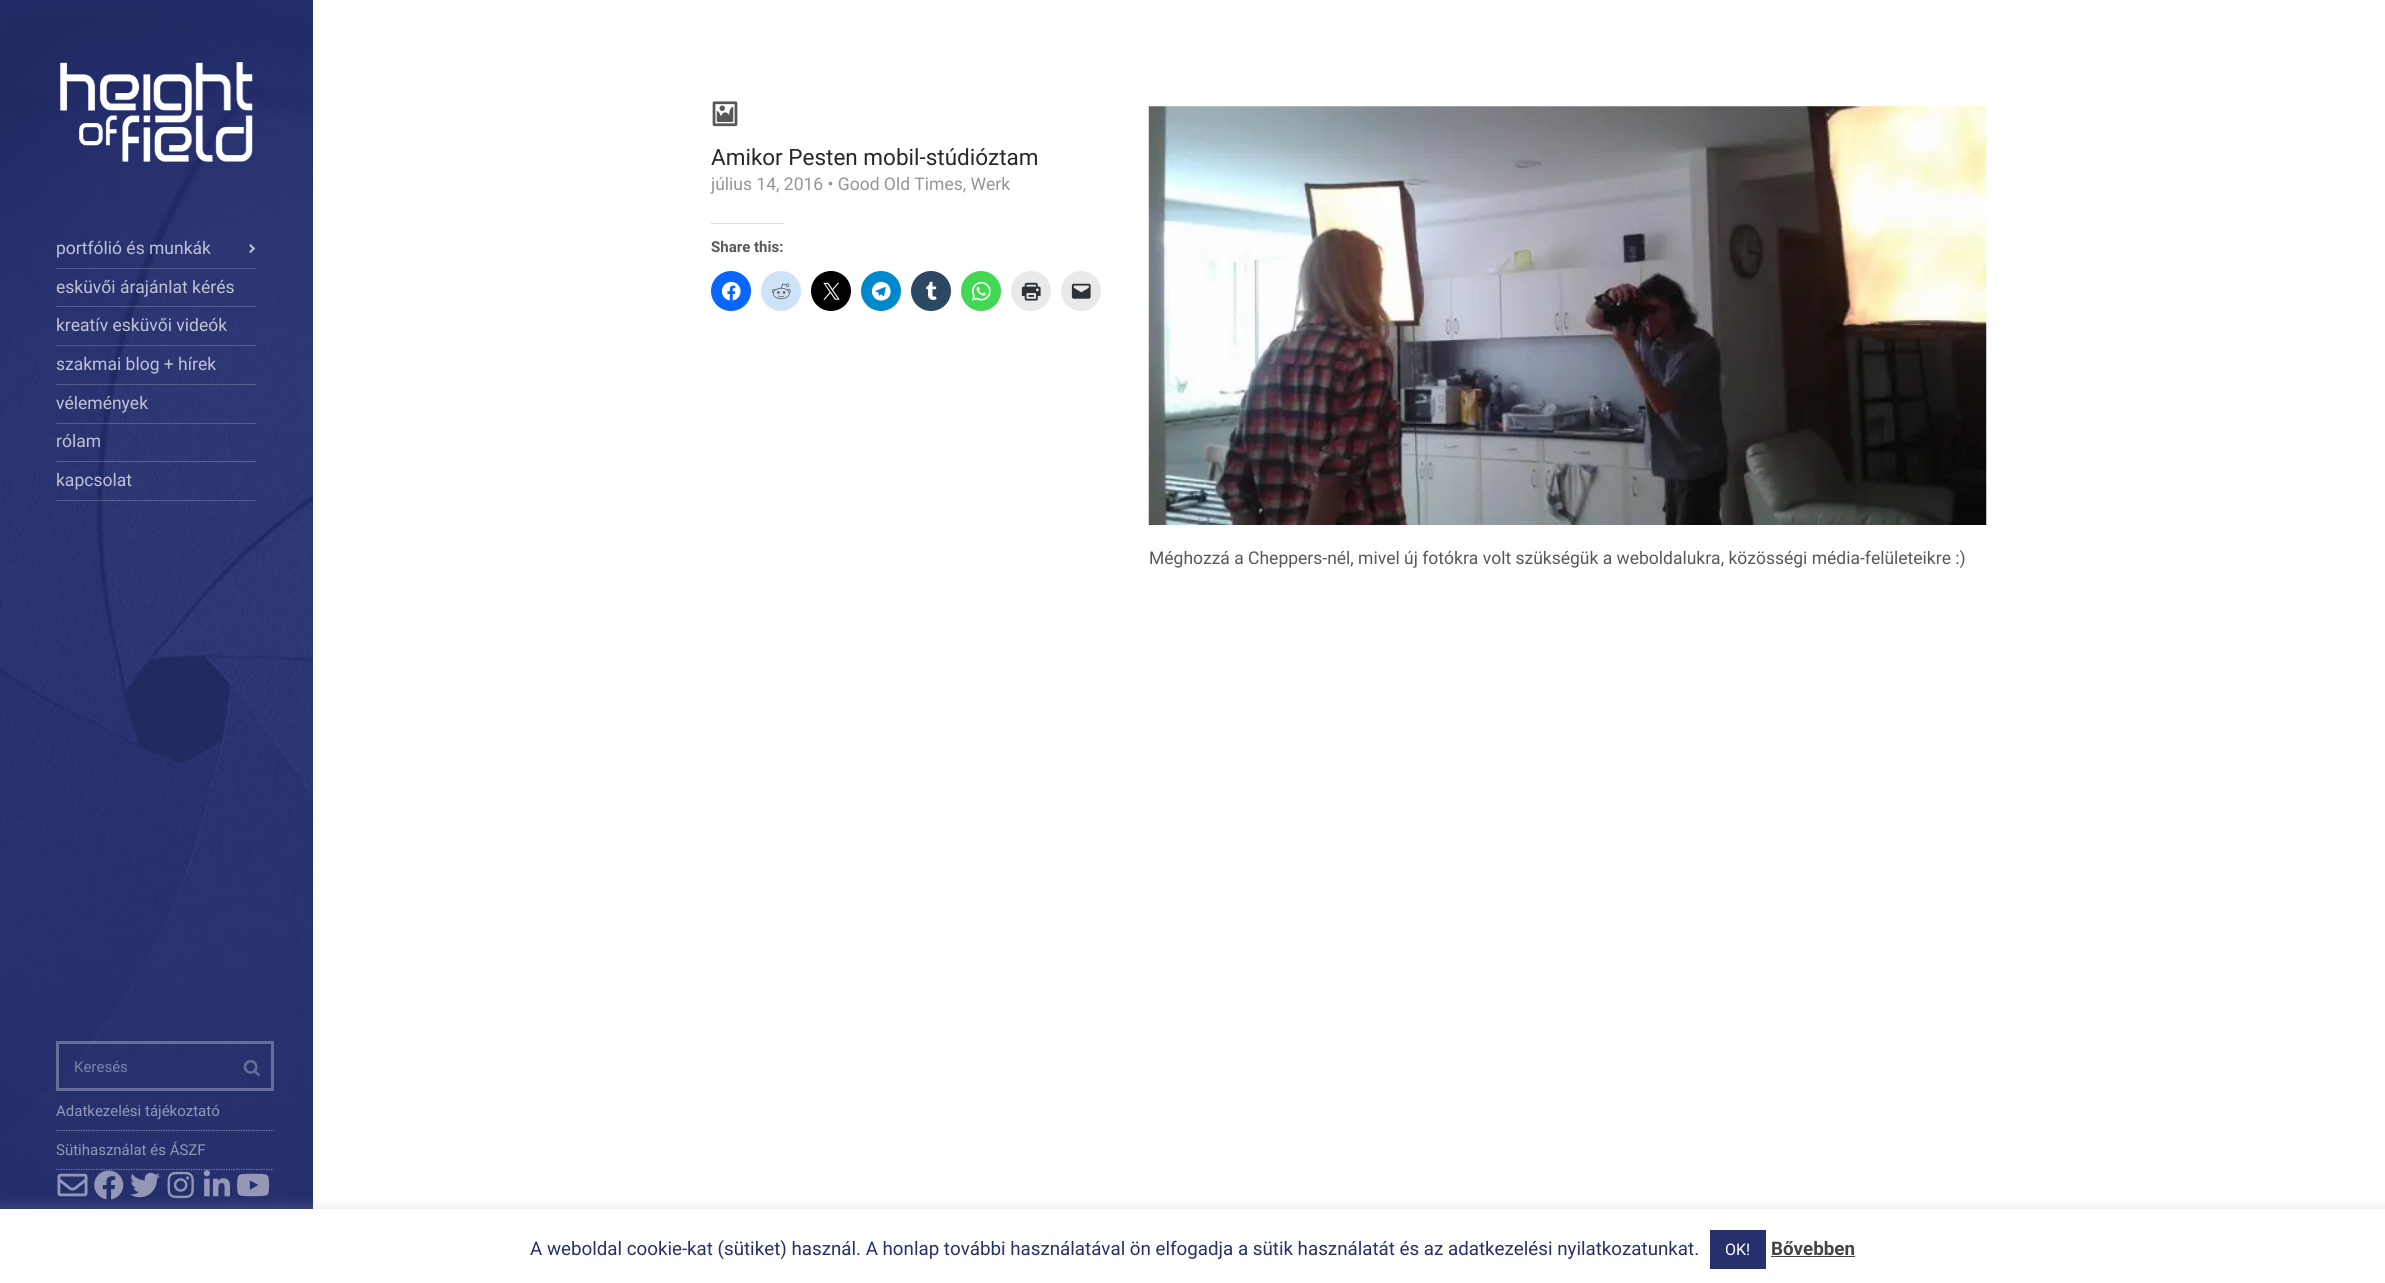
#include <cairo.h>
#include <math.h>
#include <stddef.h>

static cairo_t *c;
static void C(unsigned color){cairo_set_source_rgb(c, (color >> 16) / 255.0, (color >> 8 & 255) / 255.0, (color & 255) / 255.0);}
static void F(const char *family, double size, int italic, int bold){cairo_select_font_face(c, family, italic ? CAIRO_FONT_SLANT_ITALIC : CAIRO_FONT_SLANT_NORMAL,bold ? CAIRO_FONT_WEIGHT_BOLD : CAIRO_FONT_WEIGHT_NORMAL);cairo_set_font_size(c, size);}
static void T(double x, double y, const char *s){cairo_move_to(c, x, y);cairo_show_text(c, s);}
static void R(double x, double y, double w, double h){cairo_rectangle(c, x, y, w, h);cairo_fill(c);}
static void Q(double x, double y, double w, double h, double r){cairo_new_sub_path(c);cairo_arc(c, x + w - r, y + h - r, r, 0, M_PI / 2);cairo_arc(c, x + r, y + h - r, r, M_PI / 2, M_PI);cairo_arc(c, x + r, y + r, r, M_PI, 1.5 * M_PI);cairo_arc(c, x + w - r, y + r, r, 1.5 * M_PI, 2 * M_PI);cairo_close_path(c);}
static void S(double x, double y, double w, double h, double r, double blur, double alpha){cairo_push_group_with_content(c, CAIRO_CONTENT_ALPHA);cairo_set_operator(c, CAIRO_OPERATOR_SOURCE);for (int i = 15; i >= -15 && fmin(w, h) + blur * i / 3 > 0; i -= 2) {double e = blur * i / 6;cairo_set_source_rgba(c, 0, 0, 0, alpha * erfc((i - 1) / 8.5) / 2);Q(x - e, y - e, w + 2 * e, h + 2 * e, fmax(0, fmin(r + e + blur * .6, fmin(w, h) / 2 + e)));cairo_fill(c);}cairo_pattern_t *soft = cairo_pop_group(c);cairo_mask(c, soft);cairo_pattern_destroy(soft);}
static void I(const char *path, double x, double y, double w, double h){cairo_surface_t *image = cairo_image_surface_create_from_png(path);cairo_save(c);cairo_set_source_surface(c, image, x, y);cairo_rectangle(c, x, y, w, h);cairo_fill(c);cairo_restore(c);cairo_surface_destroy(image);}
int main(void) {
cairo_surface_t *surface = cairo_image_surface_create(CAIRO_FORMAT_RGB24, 2385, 1283);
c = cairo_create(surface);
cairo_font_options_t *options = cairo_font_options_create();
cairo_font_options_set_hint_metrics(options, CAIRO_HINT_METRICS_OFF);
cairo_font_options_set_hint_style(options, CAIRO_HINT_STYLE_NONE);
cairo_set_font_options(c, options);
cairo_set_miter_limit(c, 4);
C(0xffffff);
cairo_paint(c);
I("1.png",0,0,313,1209);
I("2.png",60,62,193,100);
cairo_set_source_rgba(c,1,1,1,0.2);
R(56,268,200,1);
F("Roboto",17.5,0,0);
C(0xbfc2d4);
T(56,254,"portfólió és munkák");
I("3.png",249,244,6,9);
cairo_set_source_rgba(c,1,1,1,0.2);
R(56,306,200,1);
C(0xbfc2d4);
T(56,293,"esküvői árajánlat kérés");
cairo_set_source_rgba(c,1,1,1,0.2);
R(56,345,200,1);
C(0xbfc2d4);
T(56,331,"kreatív esküvői videók");
cairo_set_source_rgba(c,1,1,1,0.2);
R(56,384,200,1);
C(0xbfc2d4);
T(56,370,"szakmai blog + hírek");
cairo_set_source_rgba(c,1,1,1,0.2);
R(56,423,200,1);
C(0xbfc2d4);
T(56,409,"vélemények");
cairo_set_source_rgba(c,1,1,1,0.2);
R(56,461,200,1);
C(0xbfc2d4);
T(56,447,"rólam");
cairo_set_source_rgba(c,1,1,1,0.2);
R(56,500,200,1);
C(0xbfc2d4);
T(56,486,"kapcsolat");
cairo_rectangle(c,57.5,1042.5,215,47);
cairo_set_source_rgba(c,1,1,1,0.3);
cairo_set_line_width(c,3);
cairo_stroke(c);
F("Roboto",15,0,0);
C(0x7d83a8);
T(74,1072,"Keresés");
I("4.png",243,1060,17,17);
cairo_new_path(c);
cairo_move_to(c,56,1130.5);
cairo_line_to(c,274,1130.5);
C(0x7d83a7);
cairo_set_line_width(c,1.2);
cairo_set_dash(c,(double[]){1.25,1.25},2,0);
cairo_stroke(c);
C(0x9398b6);
T(56,1116,"Adatkezelési tájékoztató");
cairo_new_path(c);
cairo_move_to(c,56,1169.5);
cairo_line_to(c,274,1169.5);
C(0x7d83a7);
cairo_stroke(c);
C(0x9398b6);
T(56,1155,"Sütihasználat és ÁSZF");
cairo_set_source_rgba(c,0.145,0.188,0.42,0.5);
R(56,1170,31,1);
I("5.png",57,1173,31,24);
R(94,1170,30,1);
I("6.png",94,1170,30,30);
R(129,1170,31,1);
I("7.png",130,1172,30,26);
R(166,1170,29,1);
I("8.png",167,1171,27,28);
R(201,1170,31,1);
I("9.png",203,1170,27,27);
R(238,1170,31,1);
I("10.png",237,1173,33,24);
I("11.png",712,101,26,26);
F("Roboto",22.5,0,0);
C(0x282828);
T(711,165,"Amikor Pesten mobil-stúdióztam");
F("Roboto",17.5,0,0);
C(0x969595);
T(711,190,"július 14, 2016 • Good Old Times, Werk");
C(0xdcdcde);
R(711,223,73,1);
F("Roboto",15,0,1);
C(0x585858);
T(711,252,"Share this:");
C(0x0866ff);
cairo_new_path(c);
cairo_arc(c,731,291,20,0,2 * M_PI);
cairo_fill(c);
I("12.png",721,281,20,20);
C(0xcee3f8);
cairo_arc(c,781,291,20,0,2 * M_PI);
cairo_fill(c);
I("13.png",771,283,20,17);
C(0x000000);
cairo_arc(c,831,291,20,0,2 * M_PI);
cairo_fill(c);
I("14.png",823,282,17,18);
C(0x0088cc);
cairo_arc(c,881,291,20,0,2 * M_PI);
cairo_fill(c);
I("15.png",871,281,20,20);
C(0x2c4762);
cairo_arc(c,931,291,20,0,2 * M_PI);
cairo_fill(c);
I("16.png",926,281,11,19);
C(0x43d854);
cairo_arc(c,981,291,20,0,2 * M_PI);
cairo_fill(c);
I("17.png",972,281,19,20);
C(0xe9e9e9);
cairo_arc(c,1031,291,20,0,2 * M_PI);
cairo_fill(c);
I("18.png",1021,282,20,19);
cairo_arc(c,1081,291,20,0,2 * M_PI);
cairo_fill(c);
I("19.png",1071,283,20,16);
I("20.png",1148,106,839,419);
F("Roboto",17.5,0,0);
C(0x585858);
T(1149,564,"Méghozzá a Cheppers-nél, mivel új fotókra volt szükségük a weboldalukra, közösségi média-felületeikre :)");
C(0xacabab);
S(0,1208,2385,75,0,6,.3);
C(0xffffff);
R(0,1209,2385,74);
F("Roboto",18.75,0,0);
C(0x26306d);
T(530,1255,"A weboldal cookie-kat (sütiket) használ. A honlap további használatával ön elfogadja a sütik használatát és az adatkezelési nyilatkozatunkat.");
R(1710,1230,56,39);
F("Roboto",16,0,0);
C(0xffffff);
T(1725,1255,"OK!");
F("Roboto",18.75,0,1);
C(0x444444);
T(1771,1255,"Bővebben");
R(1771,1256,84,1);
cairo_surface_write_to_png(surface, "o.png");
cairo_font_options_destroy(options);
cairo_destroy(c);
cairo_surface_destroy(surface);
return 0;
}
